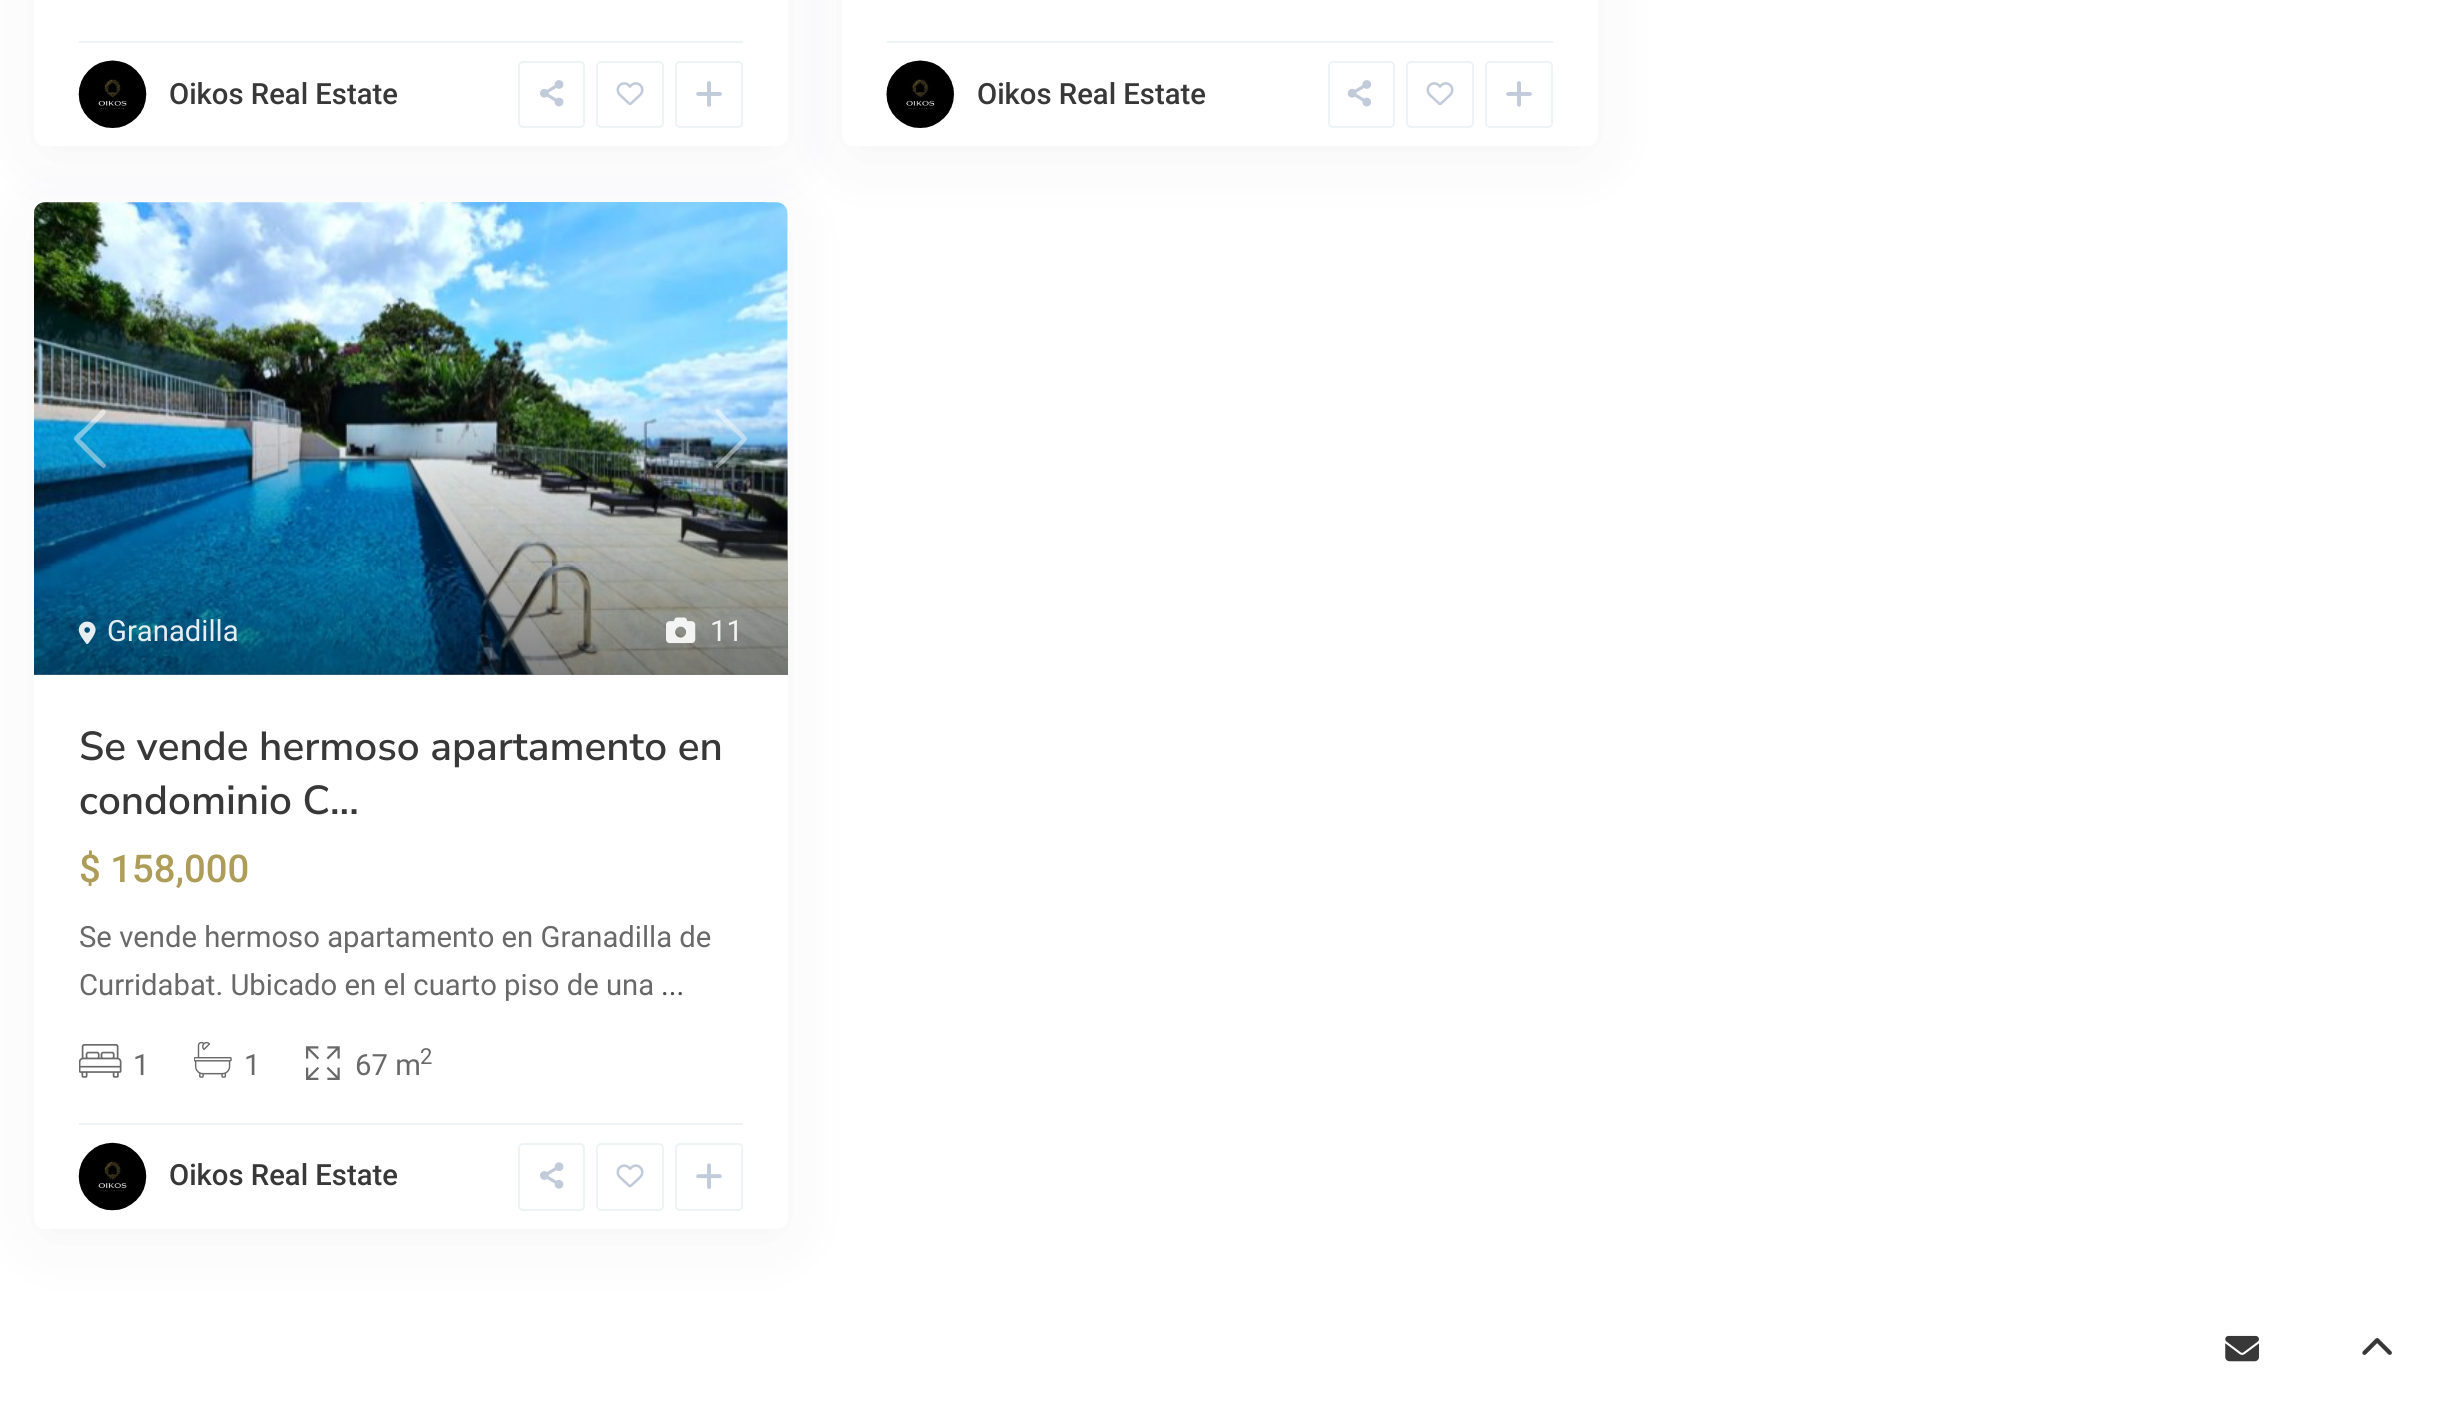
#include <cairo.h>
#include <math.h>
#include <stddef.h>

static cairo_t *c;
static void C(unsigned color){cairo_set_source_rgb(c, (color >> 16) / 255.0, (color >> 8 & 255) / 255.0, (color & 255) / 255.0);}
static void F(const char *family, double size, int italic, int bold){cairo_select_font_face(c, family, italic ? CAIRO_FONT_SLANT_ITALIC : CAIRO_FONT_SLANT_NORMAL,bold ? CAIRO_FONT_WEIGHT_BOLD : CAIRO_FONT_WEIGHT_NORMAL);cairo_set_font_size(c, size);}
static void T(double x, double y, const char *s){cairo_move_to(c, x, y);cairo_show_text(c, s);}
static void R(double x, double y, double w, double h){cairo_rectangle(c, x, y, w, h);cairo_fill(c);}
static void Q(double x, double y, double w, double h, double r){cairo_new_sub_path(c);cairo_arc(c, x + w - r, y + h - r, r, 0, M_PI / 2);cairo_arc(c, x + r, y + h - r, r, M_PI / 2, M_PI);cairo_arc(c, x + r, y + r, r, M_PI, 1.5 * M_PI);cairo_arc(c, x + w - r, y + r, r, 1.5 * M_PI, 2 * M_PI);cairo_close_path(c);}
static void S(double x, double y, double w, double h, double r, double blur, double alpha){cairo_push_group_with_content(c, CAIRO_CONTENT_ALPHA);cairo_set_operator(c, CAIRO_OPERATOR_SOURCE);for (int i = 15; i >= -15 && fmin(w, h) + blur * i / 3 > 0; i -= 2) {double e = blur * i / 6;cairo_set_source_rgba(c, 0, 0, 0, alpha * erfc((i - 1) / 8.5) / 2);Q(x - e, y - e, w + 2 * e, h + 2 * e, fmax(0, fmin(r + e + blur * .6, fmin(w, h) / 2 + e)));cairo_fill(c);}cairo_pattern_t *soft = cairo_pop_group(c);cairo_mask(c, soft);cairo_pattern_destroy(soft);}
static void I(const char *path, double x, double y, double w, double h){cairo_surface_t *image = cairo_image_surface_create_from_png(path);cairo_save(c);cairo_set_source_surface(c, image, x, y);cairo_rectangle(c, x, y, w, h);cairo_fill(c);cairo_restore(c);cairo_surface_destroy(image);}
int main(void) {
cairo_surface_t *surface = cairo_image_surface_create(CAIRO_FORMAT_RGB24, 2464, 1426);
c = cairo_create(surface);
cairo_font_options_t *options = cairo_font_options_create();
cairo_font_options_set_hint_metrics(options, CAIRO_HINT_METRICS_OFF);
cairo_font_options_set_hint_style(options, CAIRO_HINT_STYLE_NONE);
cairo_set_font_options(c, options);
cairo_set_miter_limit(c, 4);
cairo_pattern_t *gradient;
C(0xffffff);
cairo_paint(c);
C(0x262a4c);
S(34,-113,754,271,11,34,.05);
C(0xffffff);
Q(34,-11,754,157,11);
cairo_fill(c);
C(0xeef3f6);
R(79,41,664,2);
I("1.png",78,60,69,68);
F("Roboto Medium",29.25,0,0);
C(0x383838);
T(169,104,"Oikos Real Estate");
Q(519,62,65,65,4);
C(0xeef3f6);
cairo_stroke(c);
I("2.png",540,80,24,27);
Q(597,62,66,65,4);
cairo_stroke(c);
I("3.png",616,82,28,24);
Q(676,62,66,65,4);
cairo_stroke(c);
I("4.png",696,81,26,26);
C(0x262a4c);
S(842,-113,756,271,11,34,.05);
C(0xffffff);
Q(842,-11,756,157,11);
cairo_fill(c);
C(0xeef3f6);
R(887,41,666,2);
I("5.png",886,60,69,68);
C(0x383838);
T(977,104,"Oikos Real Estate");
Q(1329,62,65,65,4);
C(0xeef3f6);
cairo_stroke(c);
I("6.png",1347,80,25,27);
Q(1407,62,66,65,4);
cairo_stroke(c);
I("3.png",1426,82,28,24);
Q(1486,62,66,65,4);
cairo_stroke(c);
I("4.png",1506,81,26,26);
C(0x262a4c);
S(34,214,754,1026,11,34,.05);
C(0xffffff);
Q(34,203,754,1026,11);
cairo_fill(c);
I("7.png",34,202,754,473);
cairo_set_source_rgba(c,1,1,1,0.5);
cairo_new_path(c);
cairo_move_to(c,105,410);
cairo_curve_to(c,108,413,102,417,101,418);
cairo_line_to(c,80,439);
cairo_line_to(c,106,465);
cairo_curve_to(c,106,467,105,468,103,468);
cairo_line_to(c,97,463);
cairo_curve_to(c,94,460,74,441,74,439);
cairo_curve_to(c,74,436,82,430,84,428);
cairo_line_to(c,97,415);
cairo_curve_to(c,98,414,102,407,105,410);
cairo_close_path(c);
cairo_fill(c);
cairo_new_path(c);
cairo_move_to(c,716,410);
cairo_curve_to(c,719,407,723,414,724,415);
cairo_line_to(c,737,428);
cairo_curve_to(c,739,430,747,436,747,439);
cairo_curve_to(c,747,441,727,460,724,463);
cairo_line_to(c,718,468);
cairo_curve_to(c,716,468,715,467,716,465);
cairo_line_to(c,742,439);
cairo_line_to(c,720,418);
cairo_curve_to(c,720,417,714,413,716,410);
cairo_close_path(c);
cairo_fill(c);
gradient = cairo_pattern_create_linear(411,675,411,203);
cairo_pattern_add_color_stop_rgba(gradient,0,0,0,0,.5);
cairo_pattern_add_color_stop_rgba(gradient,.56,0,0,0,0);
cairo_set_source(c,gradient);
cairo_pattern_destroy(gradient);
R(34,422,754,253);
I("8.png",78,621,18,23);
F("Roboto",29.25,0,0);
C(0xe6eef2);
T(107,641,"Granadilla");
I("9.png",666,617,30,27);
C(0xf3f3f3);
T(710,641,"11");
F("Nunito Sans SemiBold",40.5,0,0);
C(0x383838);
T(79,760,"Se vende hermoso apartamento en");
T(79,814,"condominio C...");
F("Roboto Medium",38.25,0,0);
C(0xad9d58);
T(79,882,"$ 158,000");
F("Roboto",29.25,0,0);
C(0x696969);
T(79,947,"Se vende hermoso apartamento en Granadilla de");
T(79,995,"Curridabat. Ubicado en el cuarto piso de una");
C(0x4c4c4c);
T(661,995,"...");
I("10.png",79,1044,43,34);
C(0x696969);
T(133,1075,"1");
I("11.png",194,1042,38,36);
T(244,1075,"1");
I("12.png",306,1046,34,34);
T(355,1075,"67 m");
F("Roboto",22,0,0);
T(420,1064,"2");
C(0xeef3f6);
R(79,1123,664,2);
I("13.png",78,1142,69,69);
F("Roboto Medium",29.25,0,0);
C(0x383838);
T(169,1185,"Oikos Real Estate");
Q(519,1144,65,66,4);
C(0xeef3f6);
cairo_stroke(c);
I("14.png",540,1162,24,27);
Q(597,1144,66,66,4);
cairo_stroke(c);
I("15.png",616,1164,28,24);
Q(676,1144,66,66,4);
cairo_stroke(c);
I("16.png",696,1163,26,26);
I("17.png",2225,1335,34,27);
I("18.png",2362,1338,30,17);
cairo_surface_write_to_png(surface, "o.png");
cairo_font_options_destroy(options);
cairo_destroy(c);
cairo_surface_destroy(surface);
return 0;
}
